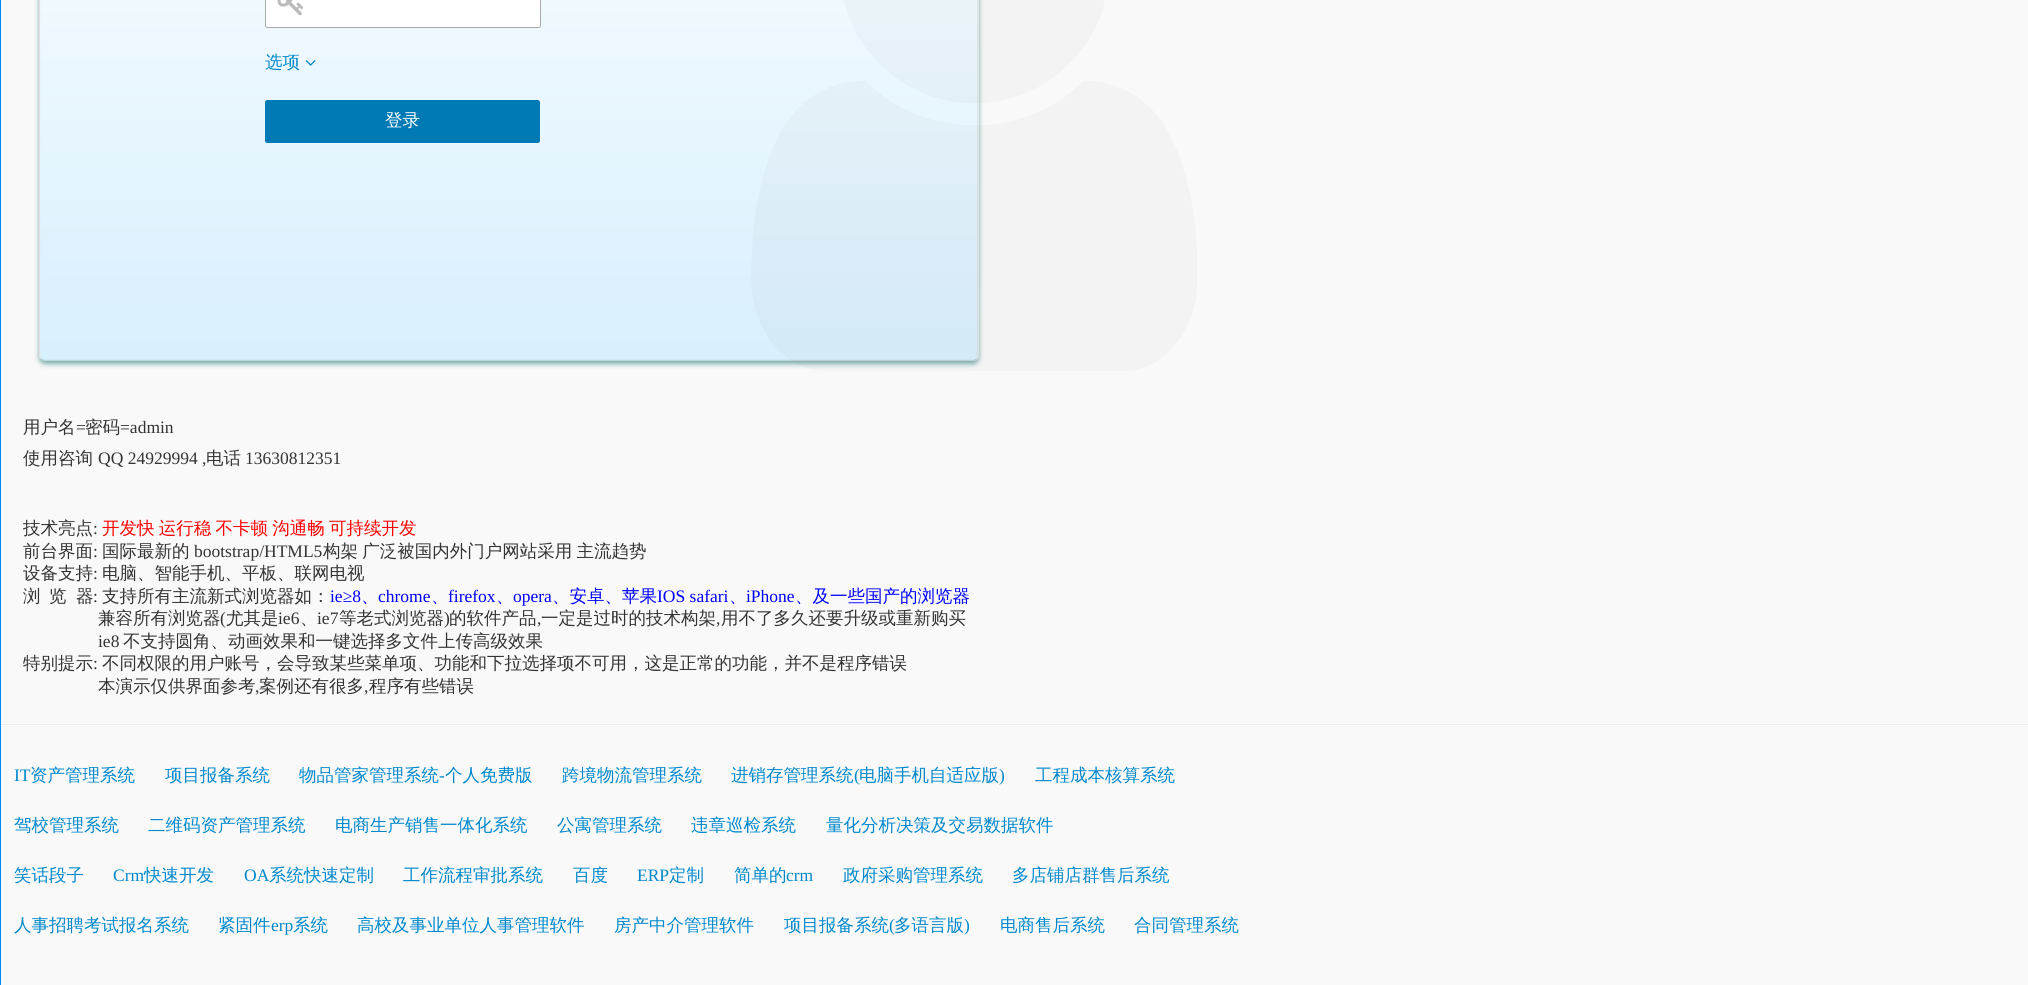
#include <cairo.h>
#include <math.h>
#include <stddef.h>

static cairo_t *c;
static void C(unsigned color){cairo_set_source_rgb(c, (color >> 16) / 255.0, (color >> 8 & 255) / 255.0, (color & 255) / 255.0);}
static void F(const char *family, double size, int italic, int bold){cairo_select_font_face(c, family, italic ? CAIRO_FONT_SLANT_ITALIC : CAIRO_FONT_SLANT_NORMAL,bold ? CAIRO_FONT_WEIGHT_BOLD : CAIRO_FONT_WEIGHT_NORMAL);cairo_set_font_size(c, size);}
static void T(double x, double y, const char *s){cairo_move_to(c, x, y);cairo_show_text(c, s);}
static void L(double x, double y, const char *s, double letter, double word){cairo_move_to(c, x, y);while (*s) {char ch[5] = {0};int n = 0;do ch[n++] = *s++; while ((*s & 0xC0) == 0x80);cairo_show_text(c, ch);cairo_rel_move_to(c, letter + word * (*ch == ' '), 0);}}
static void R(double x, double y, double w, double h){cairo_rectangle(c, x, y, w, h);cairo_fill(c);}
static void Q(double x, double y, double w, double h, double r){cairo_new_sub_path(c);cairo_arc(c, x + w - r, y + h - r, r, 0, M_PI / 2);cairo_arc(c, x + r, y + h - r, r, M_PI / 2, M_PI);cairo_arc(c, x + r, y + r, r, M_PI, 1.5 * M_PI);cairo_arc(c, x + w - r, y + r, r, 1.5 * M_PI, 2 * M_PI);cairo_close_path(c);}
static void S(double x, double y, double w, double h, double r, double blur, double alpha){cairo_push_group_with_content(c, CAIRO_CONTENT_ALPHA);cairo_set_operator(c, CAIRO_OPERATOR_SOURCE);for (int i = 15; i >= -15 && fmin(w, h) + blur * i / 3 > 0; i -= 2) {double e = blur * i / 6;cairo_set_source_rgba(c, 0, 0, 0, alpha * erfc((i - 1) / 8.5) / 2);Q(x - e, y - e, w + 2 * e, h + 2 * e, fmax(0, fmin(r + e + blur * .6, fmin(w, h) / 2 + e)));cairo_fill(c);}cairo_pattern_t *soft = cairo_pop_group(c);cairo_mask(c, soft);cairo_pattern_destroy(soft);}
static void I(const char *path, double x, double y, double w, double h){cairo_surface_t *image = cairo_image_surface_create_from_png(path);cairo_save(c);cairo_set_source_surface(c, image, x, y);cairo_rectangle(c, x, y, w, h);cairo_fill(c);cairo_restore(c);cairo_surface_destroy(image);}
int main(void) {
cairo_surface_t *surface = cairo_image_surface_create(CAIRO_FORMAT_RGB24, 2028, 985);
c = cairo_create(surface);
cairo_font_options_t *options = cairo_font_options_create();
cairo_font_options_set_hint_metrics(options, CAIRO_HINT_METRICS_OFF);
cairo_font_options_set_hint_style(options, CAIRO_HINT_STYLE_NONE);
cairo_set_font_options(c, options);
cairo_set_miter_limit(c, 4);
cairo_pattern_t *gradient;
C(0x008bf2);
cairo_paint(c);
C(0xf9f9f9);
R(1,0,2027,985);
C(0x006464);
S(39,-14,940,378,6,2.5,.5);
C(0xfdfeff);
Q(39,-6,940,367,6);
cairo_fill(c);
cairo_save(c);
Q(39,-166,940,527,6);
cairo_clip(c);
gradient = cairo_pattern_create_linear(509,-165,509,360);
cairo_pattern_add_color_stop_rgba(gradient,0,0.98,0.996,1,1);
cairo_pattern_add_color_stop_rgba(gradient,1,0.847,0.937,0.992,1);
cairo_set_source(c,gradient);
cairo_pattern_destroy(gradient);
R(39,0,940,360);
cairo_restore(c);
cairo_new_path(c);
cairo_move_to(c,976.5,359);
cairo_curve_to(c,975.5,360,974,360.5,972.5,360.5);
cairo_line_to(c,45,360.5);
cairo_curve_to(c,43.5,360.5,42,360,41,359);
cairo_set_source_rgba(c,0,0.392,0.392,0.25);
cairo_set_line_width(c,1.2);
cairo_stroke(c);
cairo_new_path(c);
cairo_move_to(c,41,359);
cairo_curve_to(c,40,358,39.5,356.5,39.5,355);
cairo_line_to(c,39.5,-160);
cairo_curve_to(c,39.5,-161.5,40,-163,41,-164);
cairo_curve_to(c,42,-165,43.5,-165.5,45,-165.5);
cairo_line_to(c,972.5,-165.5);
cairo_curve_to(c,974,-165.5,975.5,-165,976.5,-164);
cairo_curve_to(c,977.5,-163,978,-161.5,978,-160);
cairo_line_to(c,978,355);
cairo_curve_to(c,978,356.5,977.5,358,976.5,359);
C(0xdddddd);
cairo_stroke(c);
C(0xffffff);
Q(265.5,-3.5,275,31,2);
cairo_fill_preserve(c);
C(0xaaaaaa);
cairo_set_line_width(c,1);
cairo_stroke(c);
I("1.png",277,0,27,16);
F("WenQuanYi Zen Hei Medium",17.5,0,0);
C(0x0088cc);
T(265,68,"选项");
I("2.png",305,60,11,6);
C(0x007ab5);
Q(265.5,100.5,274,42,2);
cairo_fill_preserve(c);
cairo_stroke(c);
C(0xffffff);
T(385,126,"登录");
I("3.png",751,0,446,371);
C(0x333333);
T(23,433,"用户名");
F("Liberation Serif",17.5,0,0);
T(76,433,"=");
F("WenQuanYi Zen Hei Medium",17.5,0,0);
T(85,433,"密码");
F("Liberation Serif",17.5,0,0);
T(120,433,"=admin");
F("WenQuanYi Zen Hei Medium",17.5,0,0);
T(23,464,"使用咨询");
F("Liberation Serif",17.5,0,0);
T(98,464,"QQ 24929994 ,");
F("WenQuanYi Zen Hei Medium",17.5,0,0);
T(206,464,"电话");
F("Liberation Serif",17.5,0,0);
T(245,464,"13630812351");
F("WenQuanYi Zen Hei Medium",17.5,0,0);
T(23,534,"技术亮点");
F("Liberation Serif",17.5,0,0);
T(93,534,":");
F("WenQuanYi Zen Hei Medium",17.5,0,0);
C(0xff0000);
L(102,534,"开发快 运行稳 不卡顿 沟通畅 可持续开发",0,-1);
C(0x333333);
T(23,557,"前台界面");
F("Liberation Serif",17.5,0,0);
T(93,557,":");
F("WenQuanYi Zen Hei Medium",17.5,0,0);
T(102,557,"国际最新的");
F("Liberation Serif",17.5,0,0);
T(194,557,"bootstrap/HTML5");
F("WenQuanYi Zen Hei Medium",17.5,0,0);
L(323,557,"构架 广泛被国内外门户网站采用 主流趋势",0,-1);
T(23,579,"设备支持");
F("Liberation Serif",17.5,0,0);
T(93,579,":");
F("WenQuanYi Zen Hei Medium",17.5,0,0);
T(102,579,"电脑、智能手机、平板、联网电视");
T(23,602,"浏");
T(49,602,"览");
T(76,602,"器");
F("Liberation Serif",17.5,0,0);
T(93,602,":");
F("WenQuanYi Zen Hei Medium",17.5,0,0);
T(102,602,"支持所有主流新式浏览器如：");
F("Liberation Serif",17.5,0,0);
C(0x0000ff);
T(330,602,"ie≥8");
F("WenQuanYi Zen Hei Medium",17.5,0,0);
T(361,602,"、");
F("Liberation Serif",17.5,0,0);
T(378,602,"chrome");
F("WenQuanYi Zen Hei Medium",17.5,0,0);
T(431,602,"、");
F("Liberation Serif",17.5,0,0);
T(448,602,"firefox");
F("WenQuanYi Zen Hei Medium",17.5,0,0);
T(496,602,"、");
F("Liberation Serif",17.5,0,0);
T(513,602,"opera");
F("WenQuanYi Zen Hei Medium",17.5,0,0);
T(552,602,"、安卓、苹果");
F("Liberation Serif",17.5,0,0);
T(657,602,"IOS safari");
F("WenQuanYi Zen Hei Medium",17.5,0,0);
T(729,602,"、");
F("Liberation Serif",17.5,0,0);
T(746,602,"iPhone");
F("WenQuanYi Zen Hei Medium",17.5,0,0);
T(795,602,"、及一些国产的浏览器");
C(0x333333);
T(98,624,"兼容所有浏览器");
F("Liberation Serif",17.5,0,0);
T(220,624,"(");
F("WenQuanYi Zen Hei Medium",17.5,0,0);
T(226,624,"尤其是");
F("Liberation Serif",17.5,0,0);
T(278,624,"ie6");
F("WenQuanYi Zen Hei Medium",17.5,0,0);
T(300,624,"、");
F("Liberation Serif",17.5,0,0);
T(317,624,"ie7");
F("WenQuanYi Zen Hei Medium",17.5,0,0);
T(339,624,"等老式浏览器");
F("Liberation Serif",17.5,0,0);
T(444,624,")");
F("WenQuanYi Zen Hei Medium",17.5,0,0);
T(449,624,"的软件产品");
F("Liberation Serif",17.5,0,0);
T(537,624,",");
F("WenQuanYi Zen Hei Medium",17.5,0,0);
T(541,624,"一定是过时的技术构架");
F("Liberation Serif",17.5,0,0);
T(716,624,",");
F("WenQuanYi Zen Hei Medium",17.5,0,0);
T(721,624,"用不了多久还要升级或重新购买");
F("Liberation Serif",17.5,0,0);
T(98,647,"ie8");
F("WenQuanYi Zen Hei Medium",17.5,0,0);
T(123,647,"不支持圆角、动画效果和一键选择多文件上传高级效果");
T(23,669,"特别提示");
F("Liberation Serif",17.5,0,0);
T(93,669,":");
F("WenQuanYi Zen Hei Medium",17.5,0,0);
T(102,669,"不同权限的用户账号，会导致某些菜单项、功能和下拉选择项不可用，这是正常的功能，并不是程序错误");
T(98,692,"本演示仅供界面参考");
F("Liberation Serif",17.5,0,0);
T(255,692,",");
F("WenQuanYi Zen Hei Medium",17.5,0,0);
T(259,692,"案例还有很多");
F("Liberation Serif",17.5,0,0);
T(364,692,",");
F("WenQuanYi Zen Hei Medium",17.5,0,0);
T(369,692,"程序有些错误");
C(0xeeeeee);
R(1,724,2027,1);
C(0xffffff);
R(1,725,2027,1);
F("Liberation Serif",17.5,0,0);
C(0x0088cc);
T(14,781,"IT");
F("WenQuanYi Zen Hei Medium",17.5,0,0);
T(30,781,"资产管理系统");
T(165,781,"项目报备系统");
T(299,781,"物品管家管理系统");
F("Liberation Serif",17.5,0,0);
T(439,781,"-");
F("WenQuanYi Zen Hei Medium",17.5,0,0);
T(445,781,"个人免费版");
T(562,781,"跨境物流管理系统");
T(731,781,"进销存管理系统");
F("Liberation Serif",17.5,0,0);
T(854,781,"(");
F("WenQuanYi Zen Hei Medium",17.5,0,0);
T(859,781,"电脑手机自适应版");
F("Liberation Serif",17.5,0,0);
T(999,781,")");
F("WenQuanYi Zen Hei Medium",17.5,0,0);
T(1035,781,"工程成本核算系统");
T(14,831,"驾校管理系统");
T(148,831,"二维码资产管理系统");
T(335,831,"电商生产销售一体化系统");
T(557,831,"公寓管理系统");
T(691,831,"违章巡检系统");
T(826,831,"量化分析决策及交易数据软件");
T(14,881,"笑话段子");
F("Liberation Serif",17.5,0,0);
T(113,881,"Crm");
F("WenQuanYi Zen Hei Medium",17.5,0,0);
T(144,881,"快速开发");
F("Liberation Serif",17.5,0,0);
T(244,881,"OA");
F("WenQuanYi Zen Hei Medium",17.5,0,0);
T(269,881,"系统快速定制");
T(403,881,"工作流程审批系统");
T(573,881,"百度");
F("Liberation Serif",17.5,0,0);
T(637,881,"ERP");
F("WenQuanYi Zen Hei Medium",17.5,0,0);
T(669,881,"定制");
T(734,881,"简单的");
F("Liberation Serif",17.5,0,0);
T(786,881,"crm");
F("WenQuanYi Zen Hei Medium",17.5,0,0);
T(843,881,"政府采购管理系统");
T(1012,881,"多店铺店群售后系统");
T(14,931,"人事招聘考试报名系统");
T(218,931,"紧固件");
F("Liberation Serif",17.5,0,0);
T(271,931,"erp");
F("WenQuanYi Zen Hei Medium",17.5,0,0);
T(293,931,"系统");
T(357,931,"高校及事业单位人事管理软件");
T(614,931,"房产中介管理软件");
T(784,931,"项目报备系统");
F("Liberation Serif",17.5,0,0);
T(889,931,"(");
F("WenQuanYi Zen Hei Medium",17.5,0,0);
T(894,931,"多语言版");
F("Liberation Serif",17.5,0,0);
T(964,931,")");
F("WenQuanYi Zen Hei Medium",17.5,0,0);
T(1000,931,"电商售后系统");
T(1134,931,"合同管理系统");
cairo_surface_write_to_png(surface, "o.png");
cairo_font_options_destroy(options);
cairo_destroy(c);
cairo_surface_destroy(surface);
return 0;
}
